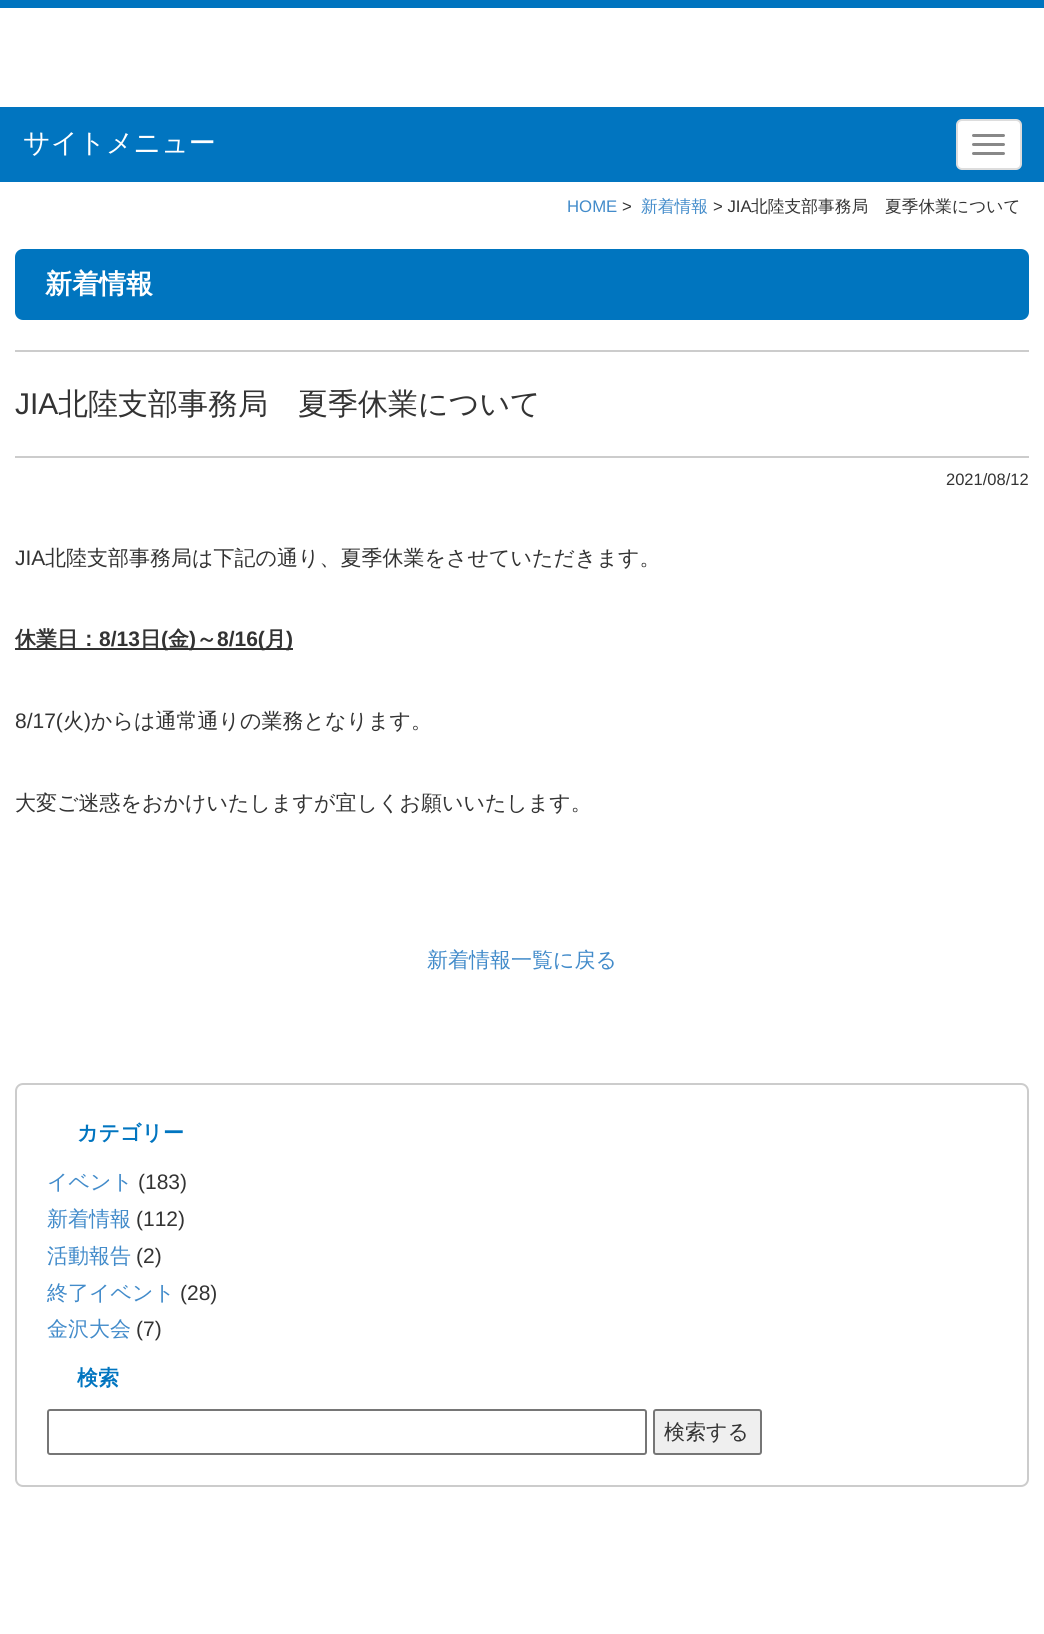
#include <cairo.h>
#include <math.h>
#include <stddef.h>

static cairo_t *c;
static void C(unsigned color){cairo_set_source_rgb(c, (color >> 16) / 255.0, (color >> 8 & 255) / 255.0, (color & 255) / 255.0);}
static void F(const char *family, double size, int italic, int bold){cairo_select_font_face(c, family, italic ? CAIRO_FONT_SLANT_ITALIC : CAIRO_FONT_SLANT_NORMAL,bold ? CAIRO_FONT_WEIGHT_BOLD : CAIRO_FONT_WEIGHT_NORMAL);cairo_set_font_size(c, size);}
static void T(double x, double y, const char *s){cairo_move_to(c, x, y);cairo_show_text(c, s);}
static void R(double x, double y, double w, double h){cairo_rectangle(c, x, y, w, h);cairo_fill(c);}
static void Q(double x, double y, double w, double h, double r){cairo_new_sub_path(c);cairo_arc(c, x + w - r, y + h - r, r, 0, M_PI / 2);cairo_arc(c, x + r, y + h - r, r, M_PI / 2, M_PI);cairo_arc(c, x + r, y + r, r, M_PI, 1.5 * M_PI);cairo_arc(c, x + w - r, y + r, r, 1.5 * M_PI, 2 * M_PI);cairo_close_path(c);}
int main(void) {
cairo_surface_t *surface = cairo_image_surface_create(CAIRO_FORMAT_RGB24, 1044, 1634);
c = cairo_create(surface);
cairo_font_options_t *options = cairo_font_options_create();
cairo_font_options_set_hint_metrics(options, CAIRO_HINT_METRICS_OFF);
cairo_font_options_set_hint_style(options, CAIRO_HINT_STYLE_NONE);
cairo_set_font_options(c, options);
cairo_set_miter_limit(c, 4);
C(0xffffff);
cairo_paint(c);
C(0x0074bf);
R(0,0,1044,8);
C(0x0175c0);
R(0,107,1044,75);
F("WenQuanYi Zen Hei Medium",27,0,0);
C(0xffffff);
T(23,152,"サイトメニュー");
Q(957,120,64,49,5);
cairo_fill_preserve(c);
C(0xdddddd);
cairo_stroke(c);
C(0x888888);
Q(972,134,33,3,1.5);
cairo_fill(c);
Q(972,143,33,3,1.5);
cairo_fill(c);
Q(972,152,33,3,1.5);
cairo_fill(c);
F("Liberation Sans",16.75,0,0);
C(0x428bca);
T(567,212,"HOME");
C(0x333333);
T(622,212,">");
F("WenQuanYi Zen Hei Medium",16.75,0,0);
C(0x428bca);
T(641,212,"新着情報");
F("Liberation Sans",16.75,0,0);
C(0x333333);
T(713,212,"> JIA");
F("WenQuanYi Zen Hei Medium",16.75,0,0);
T(751,212,"北陸支部事務局　夏季休業について");
C(0x0075bf);
Q(15,249,1014,71,8);
cairo_fill(c);
F("WenQuanYi Zen Hei",27,0,1);
C(0xffffff);
T(45,293,"新着情報");
C(0xcccccc);
R(15,350,1014,2);
R(15,456,1014,2);
F("Liberation Sans",30,0,0);
C(0x333333);
T(15,414,"JIA");
F("WenQuanYi Zen Hei Medium",30,0,0);
T(58,414,"北陸支部事務局　夏季休業について");
F("Liberation Sans",16.5,0,0);
T(946,485,"2021/08/12");
F("Liberation Sans",21,0,0);
T(15,565,"JIA");
F("WenQuanYi Zen Hei Medium",21,0,0);
T(45,565,"北陸支部事務局は下記の通り、夏季休業をさせていただきます。");
R(15,648,278,2);
F("WenQuanYi Zen Hei",21,0,1);
T(15,646,"休業日：");
F("Liberation Sans",21,0,1);
T(99,646,"8/13");
F("WenQuanYi Zen Hei",21,0,1);
T(140,646,"日");
F("Liberation Sans",21,0,1);
T(161,646,"(");
F("WenQuanYi Zen Hei",21,0,1);
T(168,646,"金");
F("Liberation Sans",21,0,1);
T(189,646,")");
F("WenQuanYi Zen Hei",21,0,1);
T(196,646,"～");
F("Liberation Sans",21,0,1);
T(217,646,"8/16(");
F("WenQuanYi Zen Hei",21,0,1);
T(265,646,"月");
F("Liberation Sans",21,0,1);
T(286,646,")");
F("Liberation Sans",21,0,0);
T(15,728,"8/17(");
F("WenQuanYi Zen Hei Medium",21,0,0);
T(63,728,"火");
F("Liberation Sans",21,0,0);
T(84,728,")");
F("WenQuanYi Zen Hei Medium",21,0,0);
T(91,728,"からは通常通りの業務となります。");
T(15,810,"大変ご迷惑をおかけいたしますが宜しくお願いいたします。");
C(0x428bca);
T(427,967,"新着情報一覧に戻る");
Q(16,1084,1012,402,7);
C(0xcccccc);
cairo_stroke(c);
F("WenQuanYi Zen Hei",21,0,1);
C(0x0175c0);
T(77,1140,"カテゴリー");
F("WenQuanYi Zen Hei Medium",21,0,0);
C(0x428bca);
T(47,1189,"イベント");
F("Liberation Sans",21,0,0);
C(0x333333);
T(138,1189,"(183)");
F("WenQuanYi Zen Hei Medium",21,0,0);
C(0x428bca);
T(47,1226,"新着情報");
F("Liberation Sans",21,0,0);
C(0x333333);
T(136,1226,"(112)");
F("WenQuanYi Zen Hei Medium",21,0,0);
C(0x428bca);
T(47,1263,"活動報告");
F("Liberation Sans",21,0,0);
C(0x333333);
T(136,1263,"(2)");
F("WenQuanYi Zen Hei Medium",21,0,0);
C(0x428bca);
T(47,1300,"終了イベント");
F("Liberation Sans",21,0,0);
C(0x333333);
T(180,1300,"(28)");
F("WenQuanYi Zen Hei Medium",21,0,0);
C(0x428bca);
T(47,1336,"金沢大会");
F("Liberation Sans",21,0,0);
C(0x333333);
T(136,1336,"(7)");
F("WenQuanYi Zen Hei",21,0,1);
C(0x0175c0);
T(77,1385,"検索");
Q(48,1410,598,44,2);
C(0x767676);
cairo_stroke(c);
C(0xefefef);
Q(654,1410,107,44,2);
cairo_fill_preserve(c);
C(0x767676);
cairo_stroke(c);
F("WenQuanYi Zen Hei Medium",21,0,0);
C(0x333333);
T(664,1439,"検索する");
cairo_surface_write_to_png(surface, "o.png");
cairo_font_options_destroy(options);
cairo_destroy(c);
cairo_surface_destroy(surface);
return 0;
}
